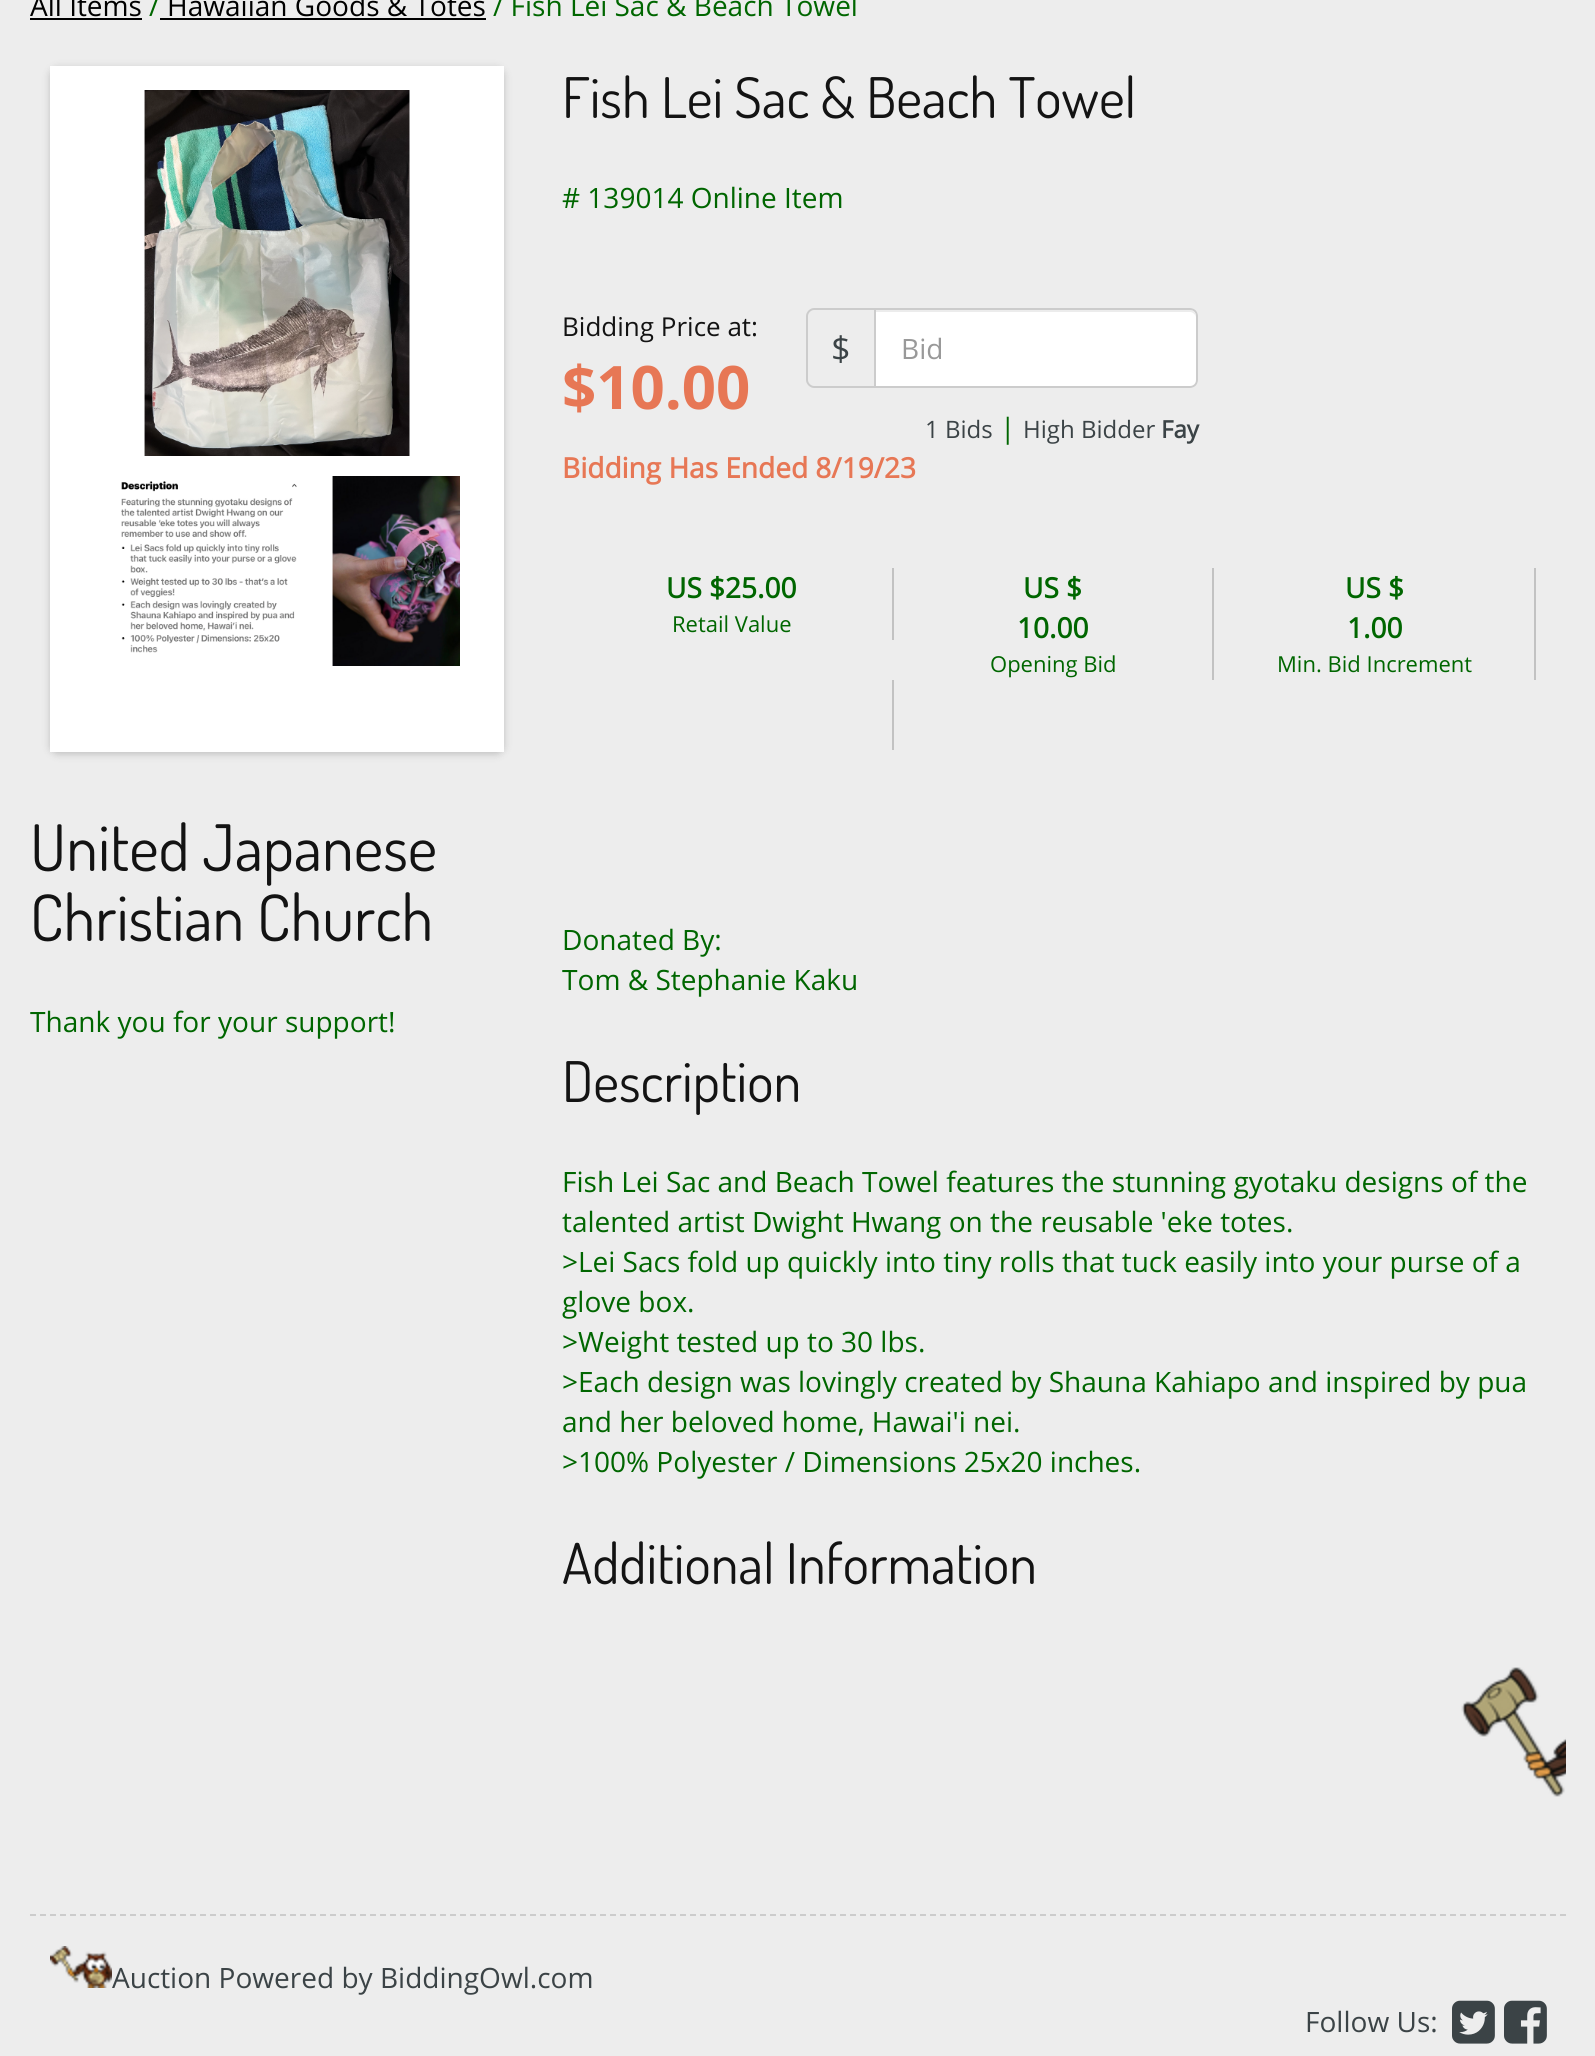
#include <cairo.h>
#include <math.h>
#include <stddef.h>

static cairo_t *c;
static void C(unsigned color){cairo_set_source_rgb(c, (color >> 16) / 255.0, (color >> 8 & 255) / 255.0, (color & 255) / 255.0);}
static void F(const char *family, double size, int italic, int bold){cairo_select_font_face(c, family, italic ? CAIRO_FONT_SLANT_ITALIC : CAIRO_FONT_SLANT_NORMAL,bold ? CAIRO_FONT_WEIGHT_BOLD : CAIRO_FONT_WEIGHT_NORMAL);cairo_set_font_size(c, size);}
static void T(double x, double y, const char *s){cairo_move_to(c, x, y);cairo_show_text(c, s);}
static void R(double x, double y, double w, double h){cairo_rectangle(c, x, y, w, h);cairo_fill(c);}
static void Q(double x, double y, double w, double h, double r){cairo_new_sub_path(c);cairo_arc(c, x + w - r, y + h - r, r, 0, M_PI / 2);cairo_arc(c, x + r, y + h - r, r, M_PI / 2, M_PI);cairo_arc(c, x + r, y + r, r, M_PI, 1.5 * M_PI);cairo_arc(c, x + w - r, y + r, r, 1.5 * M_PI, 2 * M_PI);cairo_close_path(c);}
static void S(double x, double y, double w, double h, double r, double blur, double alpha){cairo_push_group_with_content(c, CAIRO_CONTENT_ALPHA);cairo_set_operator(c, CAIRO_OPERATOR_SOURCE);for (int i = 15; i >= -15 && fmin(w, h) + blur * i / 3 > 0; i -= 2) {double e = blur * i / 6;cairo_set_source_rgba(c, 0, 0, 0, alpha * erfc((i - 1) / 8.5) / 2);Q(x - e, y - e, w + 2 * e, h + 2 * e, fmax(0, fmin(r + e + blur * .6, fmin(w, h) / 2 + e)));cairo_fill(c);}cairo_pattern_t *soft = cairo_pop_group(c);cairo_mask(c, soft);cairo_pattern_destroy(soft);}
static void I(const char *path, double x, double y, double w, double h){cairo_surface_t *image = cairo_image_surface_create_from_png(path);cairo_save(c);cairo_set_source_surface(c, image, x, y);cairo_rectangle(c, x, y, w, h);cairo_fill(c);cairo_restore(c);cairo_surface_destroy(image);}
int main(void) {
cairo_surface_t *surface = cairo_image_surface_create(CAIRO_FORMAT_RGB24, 1595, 2056);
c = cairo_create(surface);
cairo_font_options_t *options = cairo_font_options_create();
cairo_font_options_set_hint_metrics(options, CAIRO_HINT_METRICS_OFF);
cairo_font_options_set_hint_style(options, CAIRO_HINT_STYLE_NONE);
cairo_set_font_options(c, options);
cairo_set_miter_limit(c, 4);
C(0xededed);
cairo_paint(c);
F("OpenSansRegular",28,0,0);
C(0x000000);
T(30,16,"All Items");
R(30,18,112,2);
C(0x006600);
T(149,16,"/");
C(0x000000);
T(167,16,"Hawaiian Goods & Totes");
R(160,18,326,2);
C(0x006600);
T(493,16,"/ Fish Lei Sac & Beach Towel");
C(0x000000);
S(50,68,454,686,8,4,.2);
C(0xffffff);
R(74,90,406,638);
cairo_new_path(c);
cairo_move_to(c,62,78);
cairo_line_to(c,492,78);
cairo_line_to(c,492,740);
cairo_line_to(c,62,740);
cairo_close_path(c);
cairo_set_line_width(c,24);
cairo_stroke(c);
I("1.png",144,90,266,366);
I("2.png",121,481,176,172);
I("3.png",332,476,128,190);
F("Dosis",56,0,0);
C(0x131313);
T(562,118,"Fish Lei Sac & Beach Towel");
F("OpenSansRegular",28,0,0);
C(0x006600);
T(562,208,"# 139014 Online Item");
F("OpenSansRegular",26,0,0);
C(0x131313);
T(562,336,"Bidding Price at:");
F("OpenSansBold",60,0,1);
C(0xe77755);
T(562,409,"$10.00");
C(0xcccccc);
cairo_set_fill_rule(c,CAIRO_FILL_RULE_EVEN_ODD);
cairo_new_path(c);
cairo_move_to(c,814,308);
cairo_line_to(c,874,308);
cairo_line_to(c,874,388);
cairo_line_to(c,814,388);
cairo_curve_to(c,810,388,806,384,806,380);
cairo_line_to(c,806,316);
cairo_curve_to(c,806,312,810,308,814,308);
cairo_close_path(c);
cairo_move_to(c,814,310);
cairo_line_to(c,874,310);
cairo_line_to(c,874,386);
cairo_line_to(c,814,386);
cairo_curve_to(c,811,386,808,383,808,380);
cairo_line_to(c,808,316);
cairo_curve_to(c,808,313,811,310,814,310);
cairo_close_path(c);
cairo_fill(c);
F("OpenSansRegular",34,0,0);
C(0x3b4346);
T(831,361,"$");
C(0xffffff);
cairo_new_path(c);
cairo_move_to(c,874,308);
cairo_line_to(c,1190,308);
cairo_curve_to(c,1194.5,308,1198,311.5,1198,316);
cairo_line_to(c,1198,380);
cairo_curve_to(c,1198,384.5,1194.5,388,1190,388);
cairo_line_to(c,874,388);
cairo_close_path(c);
cairo_fill(c);
C(0xececec);
cairo_set_fill_rule(c,CAIRO_FILL_RULE_WINDING);
cairo_new_path(c);
cairo_move_to(c,876,312);
cairo_line_to(c,1190,312);
cairo_curve_to(c,1193,312,1196,315,1196,318);
cairo_curve_to(c,1196,315,1195,311,1191,310);
cairo_line_to(c,876,310);
cairo_close_path(c);
cairo_fill(c);
cairo_new_path(c);
cairo_move_to(c,875,309);
cairo_line_to(c,1190,309);
cairo_curve_to(c,1194,309,1197,312,1197,316);
cairo_line_to(c,1197,380);
cairo_curve_to(c,1197,384,1194,387,1190,387);
cairo_line_to(c,875,387);
cairo_close_path(c);
C(0xcccccc);
cairo_set_line_width(c,2);
cairo_stroke(c);
F("OpenSansRegular",28,0,0);
C(0x999999);
T(901,359,"Bid");
F("OpenSansRegular",24,0,0);
C(0x3b4346);
T(925,438,"1 Bids");
F("OpenSansRegular",28,0,0);
C(0x006600);
T(1000,438,"|");
F("OpenSansRegular",24,0,0);
C(0x3b4346);
T(1023,438,"High Bidder");
F("OpenSansRegular",24,0,1);
T(1161,438,"Fay");
F("OpenSansRegular",28,0,1);
C(0xe77755);
T(562,478,"Bidding Has Ended 8/19/23");
C(0xc2c2c2);
R(892,568,2,72);
C(0x006600);
T(666,598,"US $25.00");
F("OpenSansRegular",22,0,0);
T(672,632,"Retail Value");
C(0xc2c2c2);
R(1212,568,2,112);
F("OpenSansRegular",28,0,1);
C(0x006600);
T(1023,598,"US $");
T(1017,638,"10.00");
F("OpenSansRegular",22,0,0);
T(990,672,"Opening Bid");
C(0xc2c2c2);
R(1534,568,2,112);
F("OpenSansRegular",28,0,1);
C(0x006600);
T(1345,598,"US $");
T(1347,638,"1.00");
F("OpenSansRegular",22,0,0);
T(1277,672,"Min. Bid Increment");
C(0xc2c2c2);
R(892,680,2,70);
F("OpenSansRegular",28,0,0);
C(0x006600);
T(562,950,"Donated By:");
T(562,990,"Tom & Stephanie Kaku");
F("Dosis",56,0,0);
C(0x131313);
T(562,1102,"Description");
F("OpenSansRegular",28,0,0);
C(0x006600);
T(562,1192,"Fish Lei Sac and Beach Towel features the stunning gyotaku designs of the");
T(562,1232,"talented artist Dwight Hwang on the reusable 'eke totes.");
T(562,1272,">Lei Sacs fold up quickly into tiny rolls that tuck easily into your purse of a");
T(562,1312,"glove box.");
T(562,1352,">Weight tested up to 30 lbs.");
T(562,1392,">Each design was lovingly created by Shauna Kahiapo and inspired by pua");
T(562,1432,"and her beloved home, Hawai'i nei.");
T(562,1472,">100% Polyester / Dimensions 25x20 inches.");
F("Dosis",56,0,0);
C(0x131313);
T(562,1584,"Additional Information");
F("Dosis",64,0,0);
T(30,871,"United Japanese");
T(30,941,"Christian Church");
F("OpenSansRegular",28,0,0);
C(0x006600);
T(30,1032,"Thank you for your support!");
I("4.png",1461,1667,105,130);
cairo_new_path(c);
cairo_move_to(c,30,1915);
cairo_line_to(c,1566,1915);
C(0xcccccc);
cairo_set_dash(c,(double[]){6,4},2,0);
cairo_stroke(c);
I("5.png",50,1946,62,42);
C(0x3b4346);
T(112,1988,"Auction Powered by BiddingOwl.com");
T(1305,2032,"Follow Us:");
I("6.png",1452,2000,43,44);
I("7.png",1504,2000,43,44);
cairo_surface_write_to_png(surface, "o.png");
cairo_font_options_destroy(options);
cairo_destroy(c);
cairo_surface_destroy(surface);
return 0;
}
